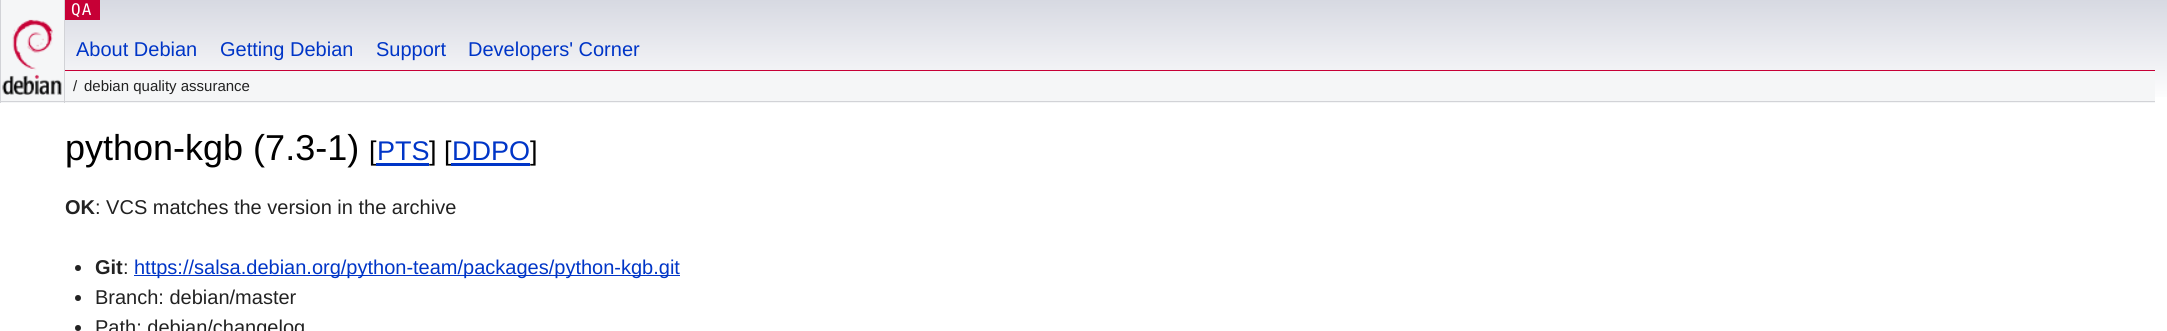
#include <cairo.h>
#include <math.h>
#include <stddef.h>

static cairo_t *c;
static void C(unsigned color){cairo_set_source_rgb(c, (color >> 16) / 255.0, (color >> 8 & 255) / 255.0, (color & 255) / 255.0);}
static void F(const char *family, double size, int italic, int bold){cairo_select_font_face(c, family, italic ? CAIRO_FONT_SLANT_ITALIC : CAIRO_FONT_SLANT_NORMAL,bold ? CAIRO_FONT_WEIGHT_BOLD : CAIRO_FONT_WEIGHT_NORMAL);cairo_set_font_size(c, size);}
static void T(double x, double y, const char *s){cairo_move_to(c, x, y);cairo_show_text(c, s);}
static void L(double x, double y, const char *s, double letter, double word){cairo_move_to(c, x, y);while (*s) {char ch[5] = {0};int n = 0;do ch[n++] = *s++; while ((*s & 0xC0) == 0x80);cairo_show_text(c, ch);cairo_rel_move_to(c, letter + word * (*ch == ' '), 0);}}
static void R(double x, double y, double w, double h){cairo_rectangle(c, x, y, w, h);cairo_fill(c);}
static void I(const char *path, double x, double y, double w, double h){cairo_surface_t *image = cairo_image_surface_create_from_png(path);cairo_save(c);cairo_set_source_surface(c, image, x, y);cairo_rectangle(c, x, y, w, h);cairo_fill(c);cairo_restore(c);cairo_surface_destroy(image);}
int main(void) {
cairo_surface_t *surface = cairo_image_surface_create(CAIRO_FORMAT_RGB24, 2167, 331);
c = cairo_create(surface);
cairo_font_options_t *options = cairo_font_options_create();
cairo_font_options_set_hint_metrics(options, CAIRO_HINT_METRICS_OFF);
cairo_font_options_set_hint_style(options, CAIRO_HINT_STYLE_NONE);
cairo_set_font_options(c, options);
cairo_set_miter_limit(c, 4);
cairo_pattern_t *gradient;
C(0xffffff);
cairo_paint(c);
gradient = cairo_pattern_create_linear(1084,0,1084,103);
cairo_pattern_add_color_stop_rgba(gradient,0,0.843,0.851,0.886,1);
cairo_pattern_add_color_stop_rgba(gradient,1,1,1,1,1);
cairo_set_source(c,gradient);
cairo_pattern_destroy(gradient);
R(65,0,2102,97);
C(0xf5f6f7);
R(1,0,63,103);
C(0xd2d3d7);
R(64,0,1,103);
R(0,101,65,1);
R(0,0,1,103);
I("1.png",2,19,60,76);
C(0xc70036);
R(65,0,35,20);
F("DejaVu Sans Mono",16,0,0);
C(0xffffff);
L(71,15,"QA",1,0);
C(0xc70036);
R(65,70,2090,1);
F("Liberation Sans",20,0,0);
C(0x0035c7);
T(76,56,"About Debian");
T(220,56,"Getting Debian");
T(376,56,"Support");
T(468,56,"Developers' Corner");
C(0xf5f6f7);
R(65,71,2090,32);
C(0xd2d3d7);
R(65,101,2090,1);
F("Liberation Sans",15,0,0);
C(0x222222);
T(73,91,"/");
T(84,91,"debian quality assurance");
F("Liberation Sans",36,0,0);
C(0x000000);
T(65,160,"python-kgb (7.3-1)");
F("Liberation Sans",27,0,0);
T(369,160,"[");
C(0x0035c7);
R(376,163,53,3);
T(377,160,"PTS");
C(0x000000);
T(429,160,"] [");
C(0x0035c7);
R(451,163,79,3);
T(452,160,"DDPO");
C(0x000000);
T(530,160,"]");
F("Liberation Sans",20,0,1);
C(0x222222);
T(65,214,"OK");
F("Liberation Sans",20,0,0);
T(95,214,": VCS matches the version in the archive");
cairo_new_path(c);
cairo_arc(c,78,268,3,0,2 * M_PI);
cairo_fill(c);
F("Liberation Sans",20,0,1);
T(95,274,"Git");
F("Liberation Sans",20,0,0);
T(123,274,":");
C(0x0035c7);
R(134,275,546,1);
T(134,274,"https://salsa.debian.org/python-team/packages/python-kgb.git");
C(0x222222);
cairo_new_path(c);
cairo_arc(c,78,298,3,0,2 * M_PI);
cairo_fill(c);
T(95,304,"Branch: debian/master");
cairo_new_path(c);
cairo_arc(c,78,328,3,0,2 * M_PI);
cairo_fill(c);
T(95,334,"Path: debian/changelog");
cairo_surface_write_to_png(surface, "o.png");
cairo_font_options_destroy(options);
cairo_destroy(c);
cairo_surface_destroy(surface);
return 0;
}
